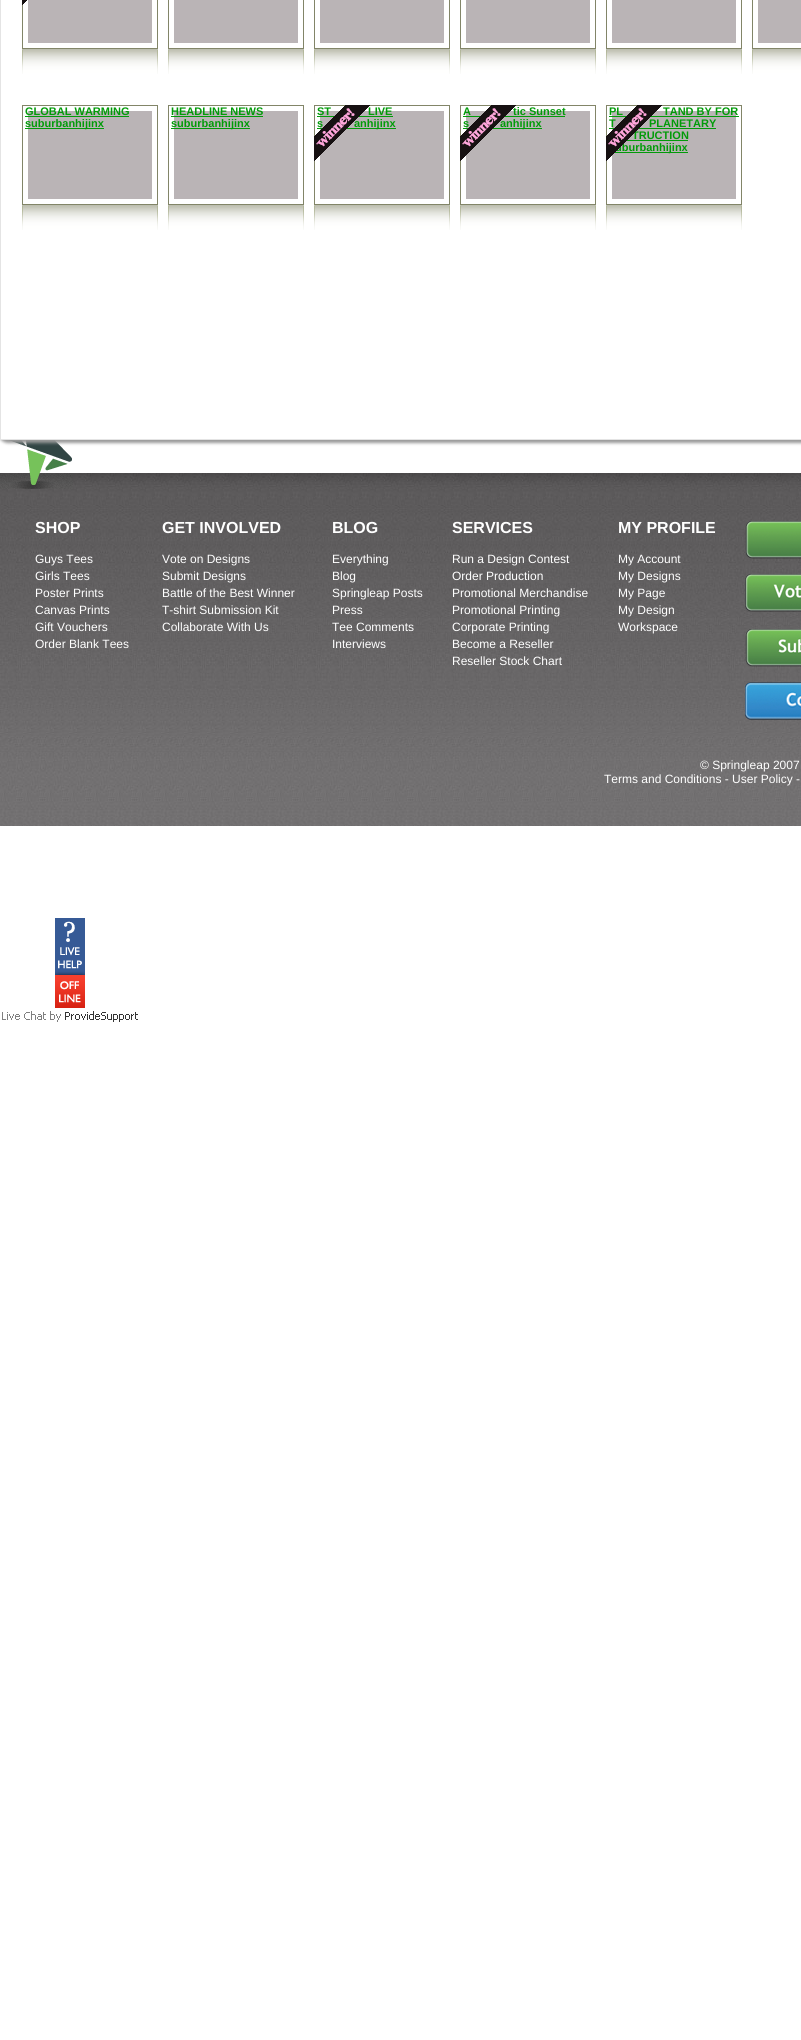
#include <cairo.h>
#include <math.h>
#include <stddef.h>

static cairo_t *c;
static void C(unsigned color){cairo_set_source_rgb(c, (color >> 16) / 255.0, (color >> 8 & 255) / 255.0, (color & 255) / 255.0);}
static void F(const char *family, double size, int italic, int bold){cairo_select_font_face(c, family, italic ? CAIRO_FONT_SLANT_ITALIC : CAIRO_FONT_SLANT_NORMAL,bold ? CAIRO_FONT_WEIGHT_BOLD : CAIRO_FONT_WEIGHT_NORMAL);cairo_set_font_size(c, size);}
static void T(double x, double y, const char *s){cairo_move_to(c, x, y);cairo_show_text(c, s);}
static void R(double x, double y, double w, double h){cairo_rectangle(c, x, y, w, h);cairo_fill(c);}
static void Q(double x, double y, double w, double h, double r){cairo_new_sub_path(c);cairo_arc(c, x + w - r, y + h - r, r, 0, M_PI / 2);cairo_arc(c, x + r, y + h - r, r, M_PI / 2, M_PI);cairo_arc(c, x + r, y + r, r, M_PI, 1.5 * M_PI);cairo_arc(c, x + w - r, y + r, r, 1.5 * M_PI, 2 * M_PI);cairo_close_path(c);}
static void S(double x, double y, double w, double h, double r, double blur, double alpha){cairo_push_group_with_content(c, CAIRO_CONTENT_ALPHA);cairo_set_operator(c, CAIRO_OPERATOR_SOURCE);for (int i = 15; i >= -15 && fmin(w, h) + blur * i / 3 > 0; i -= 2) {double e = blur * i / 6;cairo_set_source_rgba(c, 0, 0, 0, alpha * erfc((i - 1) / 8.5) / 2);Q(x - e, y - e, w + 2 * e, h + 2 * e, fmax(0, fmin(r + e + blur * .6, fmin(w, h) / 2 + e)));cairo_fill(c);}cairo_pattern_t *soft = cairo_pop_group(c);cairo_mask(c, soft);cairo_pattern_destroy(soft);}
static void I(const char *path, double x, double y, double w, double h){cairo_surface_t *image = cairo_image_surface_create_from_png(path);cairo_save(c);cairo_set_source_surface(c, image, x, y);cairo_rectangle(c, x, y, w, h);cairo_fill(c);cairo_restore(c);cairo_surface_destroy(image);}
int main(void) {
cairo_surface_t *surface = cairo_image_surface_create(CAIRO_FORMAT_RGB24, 801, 2040);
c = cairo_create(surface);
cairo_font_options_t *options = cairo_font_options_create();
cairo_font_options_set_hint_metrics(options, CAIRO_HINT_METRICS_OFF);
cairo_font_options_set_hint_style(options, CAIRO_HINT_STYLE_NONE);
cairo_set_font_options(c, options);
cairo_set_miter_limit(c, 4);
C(0xffffff);
cairo_paint(c);
I("8.png",0,473,801,353);
I("9.png",0,440,73,49);
C(0x999999);
S(-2,-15,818,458,10,1.5,1);
C(0xffffff);
cairo_rectangle(c,.5,-.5,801,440);
cairo_fill_preserve(c);
C(0xe4e4e4);
cairo_set_line_width(c,1);
cairo_stroke(c);
I("1.png",22,0,136,74);
I("2.png",22,0,5,5);
I("1.png",168,0,136,74);
I("1.png",314,0,136,74);
I("1.png",460,0,136,74);
I("1.png",606,0,136,74);
I("3.png",752,0,49,74);
I("4.png",22,105,136,125);
F("Liberation Sans",11,0,1);
C(0x029b09);
T(25,115,"GLOBAL WARMING");
R(25,116,104,1);
R(25,128,79,1);
T(25,127,"suburbanhijinx");
I("4.png",168,105,136,125);
T(171,115,"HEADLINE NEWS");
R(171,116,92,1);
R(171,128,79,1);
T(171,127,"suburbanhijinx");
I("4.png",314,105,136,125);
T(317,115,"ST");
R(317,116,76,1);
T(368,115,"LIVE");
T(317,127,"s");
R(317,128,79,1);
T(354,127,"anhijinx");
I("5.png",314,105,56,56);
I("4.png",460,105,136,125);
T(463,115,"A");
T(513,115,"tic Sunset");
R(463,116,102,1);
T(463,127,"s");
R(463,128,79,1);
T(500,127,"anhijinx");
I("6.png",460,105,56,56);
I("4.png",606,105,136,125);
T(609,115,"PL");
R(609,116,130,1);
T(609,127,"T");
R(609,128,107,1);
T(649,127,"PLANETARY");
T(632,139,"TRUCTION");
R(627,140,61,1);
R(609,152,79,1);
T(615,151,"uburbanhijinx");
I("7.png",606,105,56,56);
T(663,115,"TAND BY FOR");
F("Liberation Sans",16,0,1);
C(0xffffff);
T(35,533,"SHOP");
F("Liberation Sans",12,0,0);
T(35,563,"Guys Tees");
T(35,580,"Girls Tees");
T(35,597,"Poster Prints");
T(35,614,"Canvas Prints");
T(35,631,"Gift Vouchers");
T(35,648,"Order Blank Tees");
F("Liberation Sans",16,0,1);
T(162,533,"GET INVOLVED");
F("Liberation Sans",12,0,0);
T(162,563,"Vote on Designs");
T(162,580,"Submit Designs");
T(162,597,"Battle of the Best Winner");
T(162,614,"T-shirt Submission Kit");
T(162,631,"Collaborate With Us");
F("Liberation Sans",16,0,1);
T(332,533,"BLOG");
F("Liberation Sans",12,0,0);
T(332,563,"Everything");
T(332,580,"Blog");
T(332,597,"Springleap Posts");
T(332,614,"Press");
T(332,631,"Tee Comments");
T(332,648,"Interviews");
F("Liberation Sans",16,0,1);
T(452,533,"SERVICES");
F("Liberation Sans",12,0,0);
T(452,563,"Run a Design Contest");
T(452,580,"Order Production");
T(452,597,"Promotional Merchandise");
T(452,614,"Promotional Printing");
T(452,631,"Corporate Printing");
T(452,648,"Become a Reseller");
T(452,665,"Reseller Stock Chart");
F("Liberation Sans",16,0,1);
T(618,533,"MY PROFILE");
F("Liberation Sans",12,0,0);
T(618,563,"My Account");
T(618,580,"My Designs");
T(618,597,"My Page");
T(618,614,"My Design");
T(618,631,"Workspace");
I("10.png",745,521,56,38);
I("11.png",745,574,56,38);
I("12.png",745,629,56,38);
I("13.png",745,682,56,38);
T(700,769,"© Springleap 2007");
T(604,783,"Terms and Conditions - User Policy -");
I("14.png",55,918,30,90);
I("15.png",2,1011,136,11);
cairo_surface_write_to_png(surface, "o.png");
cairo_font_options_destroy(options);
cairo_destroy(c);
cairo_surface_destroy(surface);
return 0;
}
